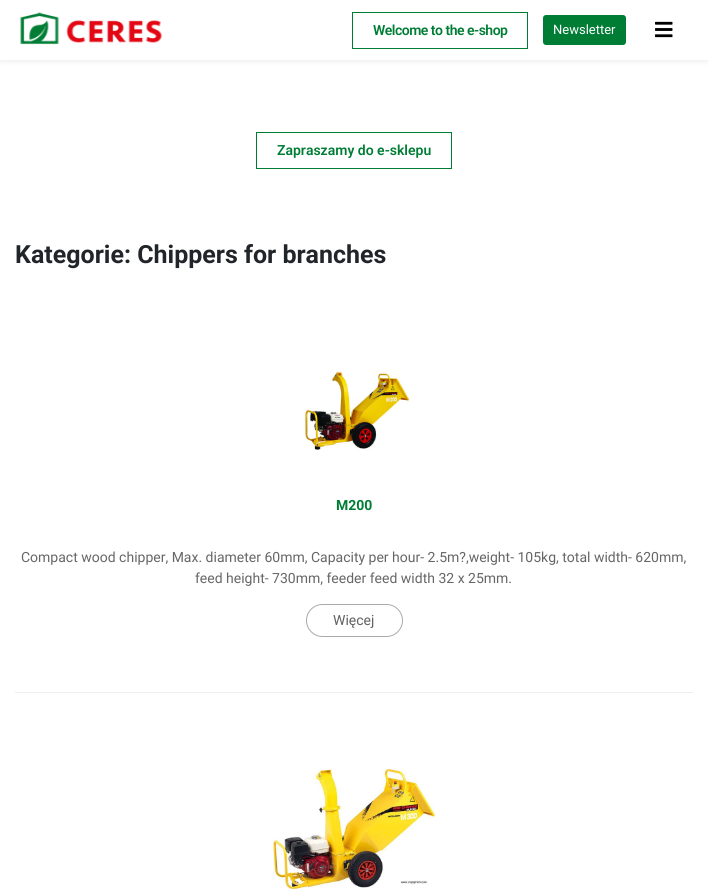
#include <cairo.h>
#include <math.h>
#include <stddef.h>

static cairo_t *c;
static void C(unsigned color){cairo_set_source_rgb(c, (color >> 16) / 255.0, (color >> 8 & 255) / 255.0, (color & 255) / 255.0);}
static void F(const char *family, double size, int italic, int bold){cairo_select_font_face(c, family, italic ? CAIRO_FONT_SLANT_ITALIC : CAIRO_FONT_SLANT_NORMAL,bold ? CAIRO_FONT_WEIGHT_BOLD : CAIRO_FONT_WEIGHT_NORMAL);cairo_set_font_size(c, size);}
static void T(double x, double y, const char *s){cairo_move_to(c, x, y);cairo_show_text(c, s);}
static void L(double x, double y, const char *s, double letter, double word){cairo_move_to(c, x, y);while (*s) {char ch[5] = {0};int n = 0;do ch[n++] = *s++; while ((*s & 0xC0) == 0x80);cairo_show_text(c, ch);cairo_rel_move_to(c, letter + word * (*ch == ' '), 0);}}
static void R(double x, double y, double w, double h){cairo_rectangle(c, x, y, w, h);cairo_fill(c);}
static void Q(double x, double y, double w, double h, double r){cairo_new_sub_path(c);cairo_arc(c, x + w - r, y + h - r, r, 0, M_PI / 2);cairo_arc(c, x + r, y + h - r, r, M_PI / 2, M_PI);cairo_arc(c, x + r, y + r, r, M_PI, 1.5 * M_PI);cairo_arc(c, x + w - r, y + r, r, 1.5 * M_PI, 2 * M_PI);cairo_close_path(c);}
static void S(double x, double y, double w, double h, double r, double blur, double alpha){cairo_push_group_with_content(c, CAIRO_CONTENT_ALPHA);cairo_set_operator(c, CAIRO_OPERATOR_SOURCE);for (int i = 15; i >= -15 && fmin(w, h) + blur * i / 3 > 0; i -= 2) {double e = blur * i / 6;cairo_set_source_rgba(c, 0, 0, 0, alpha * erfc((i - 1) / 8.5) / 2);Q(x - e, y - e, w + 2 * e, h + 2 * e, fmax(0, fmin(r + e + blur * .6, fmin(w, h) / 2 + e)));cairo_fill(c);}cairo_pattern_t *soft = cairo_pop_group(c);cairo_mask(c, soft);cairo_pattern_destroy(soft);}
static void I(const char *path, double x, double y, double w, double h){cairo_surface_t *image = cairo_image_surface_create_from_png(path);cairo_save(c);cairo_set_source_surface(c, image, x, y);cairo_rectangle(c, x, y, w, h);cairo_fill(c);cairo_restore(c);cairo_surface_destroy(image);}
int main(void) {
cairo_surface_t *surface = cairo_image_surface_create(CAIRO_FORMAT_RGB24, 708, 889);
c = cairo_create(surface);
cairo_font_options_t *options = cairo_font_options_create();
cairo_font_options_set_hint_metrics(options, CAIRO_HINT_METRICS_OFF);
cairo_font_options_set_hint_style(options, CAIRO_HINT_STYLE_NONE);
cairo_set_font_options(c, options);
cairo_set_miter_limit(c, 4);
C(0xffffff);
cairo_paint(c);
C(0x000000);
S(0,0,708,60,0,3.5,.1);
C(0xffffff);
R(0,0,708,60);
I("1.png",20,12,142,33);
cairo_rectangle(c,352.5,12.5,175,36);
C(0x007d35);
cairo_set_line_width(c,1);
cairo_stroke(c);
F("Roboto SemiBold",14,0,0);
L(373,35,"Welcome to the e-shop",-.5,0);
Q(543,15,83,30,3);
cairo_fill(c);
F("Roboto",13,0,0);
C(0xffffff);
T(553,34,"Newsletter");
I("2.png",655,21,18,17);
cairo_rectangle(c,256.5,132.5,195,36);
C(0x007d35);
cairo_stroke(c);
F("Roboto SemiBold",14,0,0);
T(277,155,"Zapraszamy do e-sklepu");
F("Roboto",25,0,1);
C(0x212529);
T(15,263,"Kategorie: Chippers for branches");
C(0xeeeeee);
R(15,692,678,1);
I("3.png",304,371,106,79);
F("Roboto",14,0,1);
C(0x007d35);
T(336,510,"M200");
F("Roboto",14,0,0);
C(0x666666);
T(21,562,"Compact wood chipper, Max. diameter 60mm, Capacity per hour- 2.5m?,weight- 105kg, total width- 620mm,");
T(195,583,"feed height- 730mm, feeder feed width 32 x 25mm.");
Q(306.5,604.5,96,32,16);
C(0xaaaaaa);
cairo_stroke(c);
C(0x616060);
T(333,625,"Więcej");
I("4.png",273,768,162,121);
cairo_surface_write_to_png(surface, "o.png");
cairo_font_options_destroy(options);
cairo_destroy(c);
cairo_surface_destroy(surface);
return 0;
}
